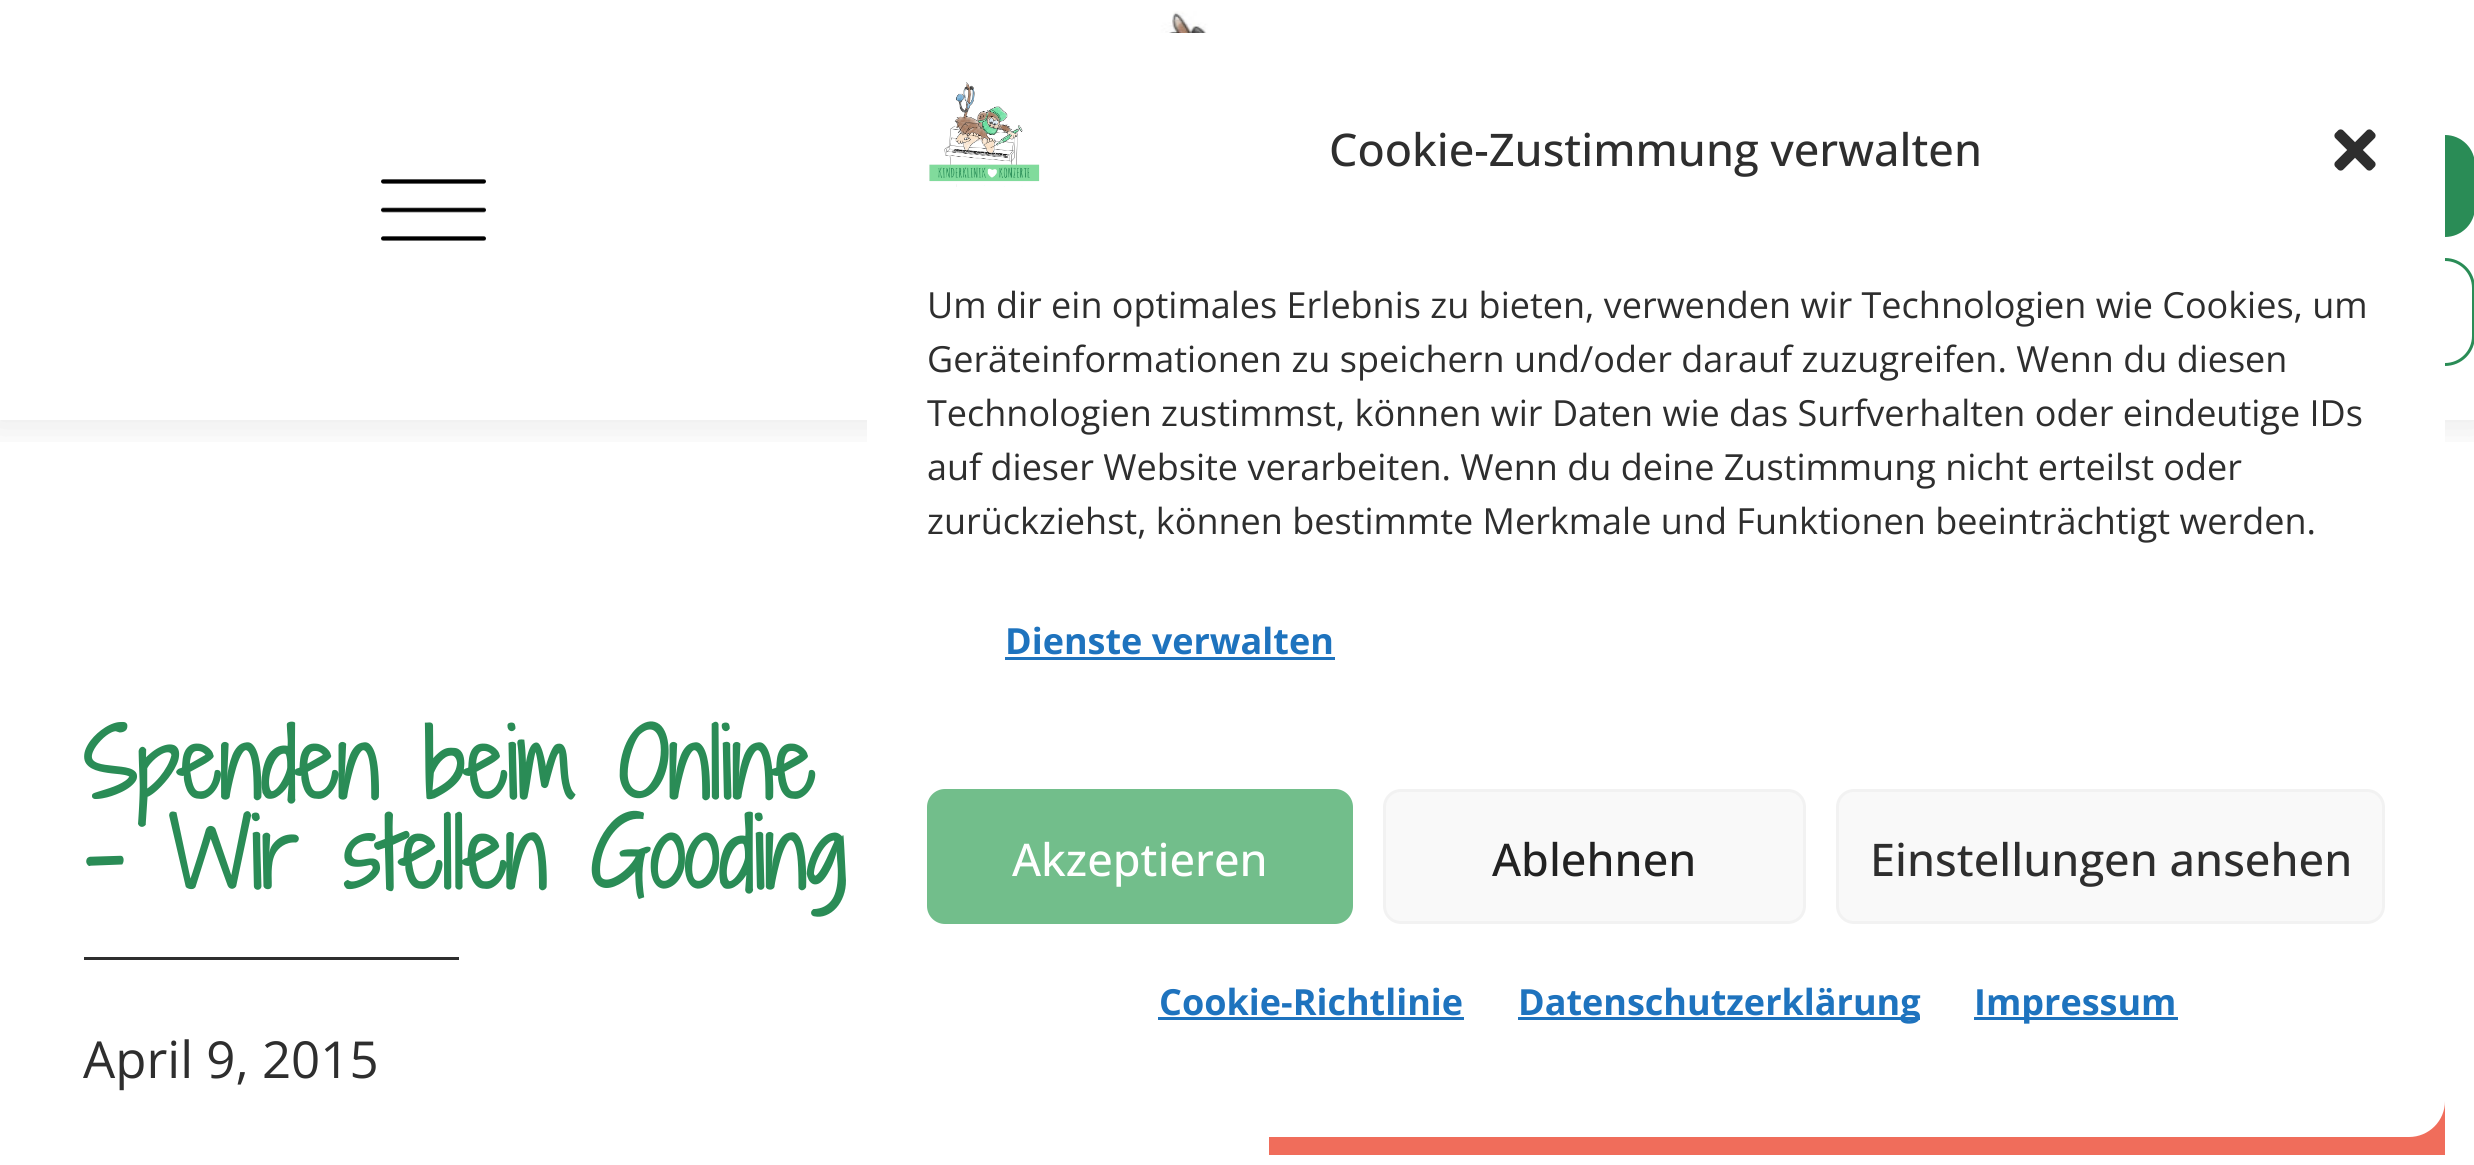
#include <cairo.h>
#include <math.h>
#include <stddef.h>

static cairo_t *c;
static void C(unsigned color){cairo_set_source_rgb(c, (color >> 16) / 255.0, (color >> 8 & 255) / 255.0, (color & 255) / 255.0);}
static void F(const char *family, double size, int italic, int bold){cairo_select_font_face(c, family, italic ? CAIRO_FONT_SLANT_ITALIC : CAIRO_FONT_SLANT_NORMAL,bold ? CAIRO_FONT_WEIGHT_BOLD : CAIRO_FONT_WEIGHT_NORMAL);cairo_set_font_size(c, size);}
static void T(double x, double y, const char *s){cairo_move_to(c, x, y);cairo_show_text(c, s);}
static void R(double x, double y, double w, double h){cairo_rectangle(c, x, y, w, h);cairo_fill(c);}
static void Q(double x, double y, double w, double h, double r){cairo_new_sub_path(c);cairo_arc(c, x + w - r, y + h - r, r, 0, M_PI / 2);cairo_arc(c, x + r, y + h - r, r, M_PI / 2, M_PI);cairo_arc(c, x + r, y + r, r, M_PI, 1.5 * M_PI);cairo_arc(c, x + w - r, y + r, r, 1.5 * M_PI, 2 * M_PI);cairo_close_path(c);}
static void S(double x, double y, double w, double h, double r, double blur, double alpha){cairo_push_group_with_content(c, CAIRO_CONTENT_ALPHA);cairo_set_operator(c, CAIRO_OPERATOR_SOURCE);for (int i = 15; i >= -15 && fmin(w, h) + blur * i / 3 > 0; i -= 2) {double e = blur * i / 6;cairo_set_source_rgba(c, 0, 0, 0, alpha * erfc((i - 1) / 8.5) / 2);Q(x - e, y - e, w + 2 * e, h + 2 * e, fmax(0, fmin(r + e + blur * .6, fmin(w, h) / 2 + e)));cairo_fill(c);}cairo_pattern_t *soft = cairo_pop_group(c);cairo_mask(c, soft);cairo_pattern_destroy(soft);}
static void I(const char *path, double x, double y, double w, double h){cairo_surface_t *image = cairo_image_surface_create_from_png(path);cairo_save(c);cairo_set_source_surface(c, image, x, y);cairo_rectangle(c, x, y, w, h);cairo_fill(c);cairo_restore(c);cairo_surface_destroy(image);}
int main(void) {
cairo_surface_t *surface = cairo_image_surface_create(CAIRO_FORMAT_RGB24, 2474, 1165);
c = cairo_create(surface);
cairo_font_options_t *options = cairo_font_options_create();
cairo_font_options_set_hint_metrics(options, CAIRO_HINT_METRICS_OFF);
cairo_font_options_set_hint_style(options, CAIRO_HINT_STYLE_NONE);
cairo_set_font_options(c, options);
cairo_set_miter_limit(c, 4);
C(0xffffff);
cairo_paint(c);
cairo_save(c);
cairo_rectangle(c,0,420,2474,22);
cairo_clip(c);
C(0x000000);
S(-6,-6,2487,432,0,21,.09);
cairo_restore(c);
I("1.png",1072,11,345,22);
I("2.png",381,179,105,62);
C(0x2a8c56);
Q(1608,135,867,102,30);
cairo_fill(c);
Q(1609.5,259.5,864,105,28.5);
cairo_set_line_width(c,3);
cairo_stroke(c);
F("Shadows Into Light Two",90,0,1);
T(83,799,"Spenden beim Online");
T(83,889,"– Wir stellen Gooding");
C(0x2e2e2e);
R(84,957,375,3);
F("Open Sans",51,0,0);
T(83,1078,"April 9, 2015");
I("3.png",1269,1101,1176,54);
C(0xffffff);
Q(867,33,1578,1104,36);
cairo_fill(c);
I("4.png",929,82,111,105);
F("Open Sans Medium",45,0,0);
C(0x2e2e2e);
T(1329,166,"Cookie-Zustimmung verwalten");
I("5.png",2334,129,42,42);
F("Open Sans",36,0,0);
T(927,318,"Um dir ein optimales Erlebnis zu bieten, verwenden wir Technologien wie Cookies, um");
T(927,372,"Geräteinformationen zu speichern und/oder darauf zuzugreifen. Wenn du diesen");
T(927,426,"Technologien zustimmst, können wir Daten wie das Surfverhalten oder eindeutige IDs");
T(927,480,"auf dieser Website verarbeiten. Wenn du deine Zustimmung nicht erteilst oder");
T(927,534,"zurückziehst, können bestimmte Merkmale und Funktionen beeinträchtigt werden.");
F("Open Sans",36,0,1);
C(0x1e73be);
T(1005,654,"Dienste verwalten");
R(1005,657,330,3);
C(0x72be8b);
Q(928.5,790.5,423,132,16.5);
cairo_fill_preserve(c);
cairo_stroke(c);
F("Open Sans Medium",45,0,0);
C(0xffffff);
T(1012,876,"Akzeptieren");
C(0xf9f9f9);
Q(1384.5,790.5,420,132,16.5);
cairo_fill_preserve(c);
C(0xf2f2f2);
cairo_stroke(c);
C(0x222222);
T(1492,876,"Ablehnen");
C(0xf9f9f9);
Q(1837.5,790.5,546,132,16.5);
cairo_fill_preserve(c);
C(0xf2f2f2);
cairo_stroke(c);
C(0x2e2e2e);
T(1870,876,"Einstellungen ansehen");
F("Open Sans",36,0,1);
C(0x1e73be);
T(1159,1015,"Cookie-Richtlinie");
R(1158,1017,306,3);
R(1518,1017,402,3);
T(1518,1015,"Datenschutzerklärung");
R(1974,1017,204,3);
T(1974,1015,"Impressum");
cairo_surface_write_to_png(surface, "o.png");
cairo_font_options_destroy(options);
cairo_destroy(c);
cairo_surface_destroy(surface);
return 0;
}
